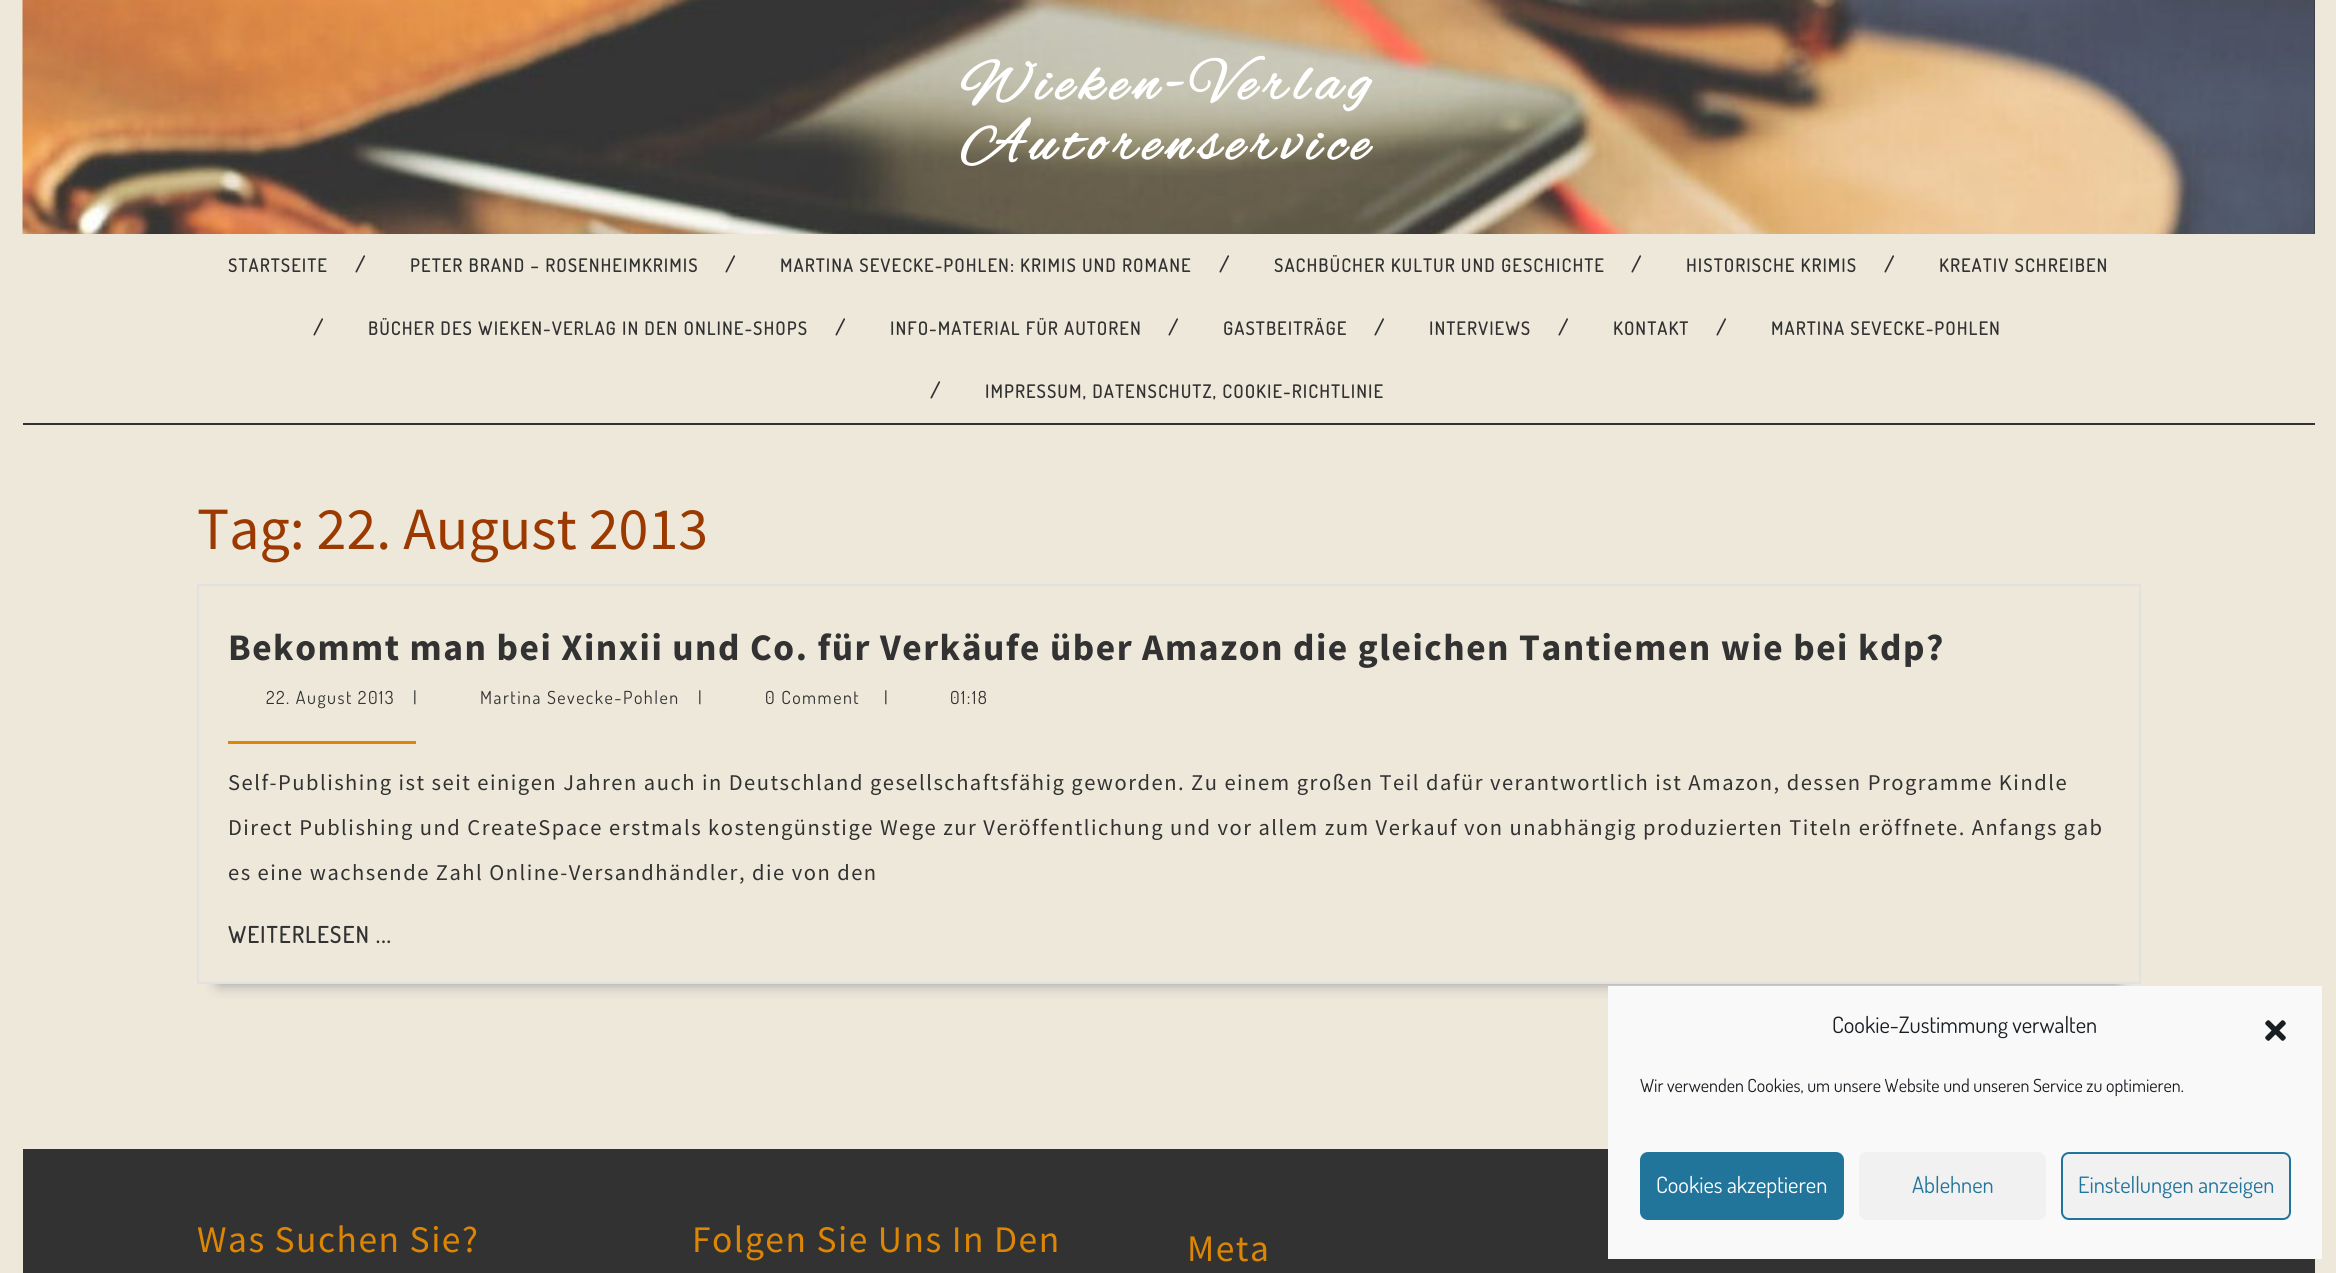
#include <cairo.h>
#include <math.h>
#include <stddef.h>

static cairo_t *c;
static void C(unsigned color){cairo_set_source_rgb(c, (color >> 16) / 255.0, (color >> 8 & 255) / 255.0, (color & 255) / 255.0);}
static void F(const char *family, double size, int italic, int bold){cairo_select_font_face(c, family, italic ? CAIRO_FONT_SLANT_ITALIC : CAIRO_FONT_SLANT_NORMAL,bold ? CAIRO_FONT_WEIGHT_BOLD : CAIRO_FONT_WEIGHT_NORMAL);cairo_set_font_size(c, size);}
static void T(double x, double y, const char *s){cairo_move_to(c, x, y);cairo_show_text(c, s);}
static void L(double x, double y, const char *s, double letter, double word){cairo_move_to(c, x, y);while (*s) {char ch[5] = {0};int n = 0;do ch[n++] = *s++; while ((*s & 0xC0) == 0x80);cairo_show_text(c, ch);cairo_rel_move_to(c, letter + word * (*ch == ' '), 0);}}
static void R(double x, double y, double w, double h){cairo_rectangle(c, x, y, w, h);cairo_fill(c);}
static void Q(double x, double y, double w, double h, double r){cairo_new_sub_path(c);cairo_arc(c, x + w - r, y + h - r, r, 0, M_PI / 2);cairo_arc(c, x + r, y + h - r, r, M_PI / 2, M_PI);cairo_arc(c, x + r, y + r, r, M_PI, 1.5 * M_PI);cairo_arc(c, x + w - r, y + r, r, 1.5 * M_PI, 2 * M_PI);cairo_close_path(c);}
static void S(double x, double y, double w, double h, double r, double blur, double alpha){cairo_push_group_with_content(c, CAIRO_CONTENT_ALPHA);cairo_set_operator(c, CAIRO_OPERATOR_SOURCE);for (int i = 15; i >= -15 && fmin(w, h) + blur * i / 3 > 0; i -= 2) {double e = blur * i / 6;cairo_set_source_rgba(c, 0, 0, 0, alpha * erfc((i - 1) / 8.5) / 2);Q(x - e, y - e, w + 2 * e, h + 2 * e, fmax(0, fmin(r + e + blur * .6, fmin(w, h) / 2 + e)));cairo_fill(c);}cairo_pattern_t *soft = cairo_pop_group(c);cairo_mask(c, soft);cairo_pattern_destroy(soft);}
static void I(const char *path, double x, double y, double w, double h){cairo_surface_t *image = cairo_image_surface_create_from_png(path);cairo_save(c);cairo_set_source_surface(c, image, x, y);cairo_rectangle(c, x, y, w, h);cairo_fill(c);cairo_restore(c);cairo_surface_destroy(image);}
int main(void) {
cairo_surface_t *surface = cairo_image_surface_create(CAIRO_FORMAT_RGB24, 2336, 1273);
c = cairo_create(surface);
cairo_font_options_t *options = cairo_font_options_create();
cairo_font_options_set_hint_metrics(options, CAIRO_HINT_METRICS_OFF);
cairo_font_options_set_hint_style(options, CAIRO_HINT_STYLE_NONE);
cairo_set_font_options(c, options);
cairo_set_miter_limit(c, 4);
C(0xede8da);
cairo_paint(c);
C(0x323232);
R(2314,0,1,234);
I("1.png",22,0,2293,234);
F("Alex Brush",60,0,1);
C(0xffffff);
L(960,99,"Wieken-Verlag",7.5,0);
L(961,159,"Autorenservice",7.5,0);
C(0x323232);
R(23,423,2292,2);
F("Dosis",18,0,1);
L(228,272,"STARTSEITE",1.5,0);
F("Dosis",21,0,1);
T(355,272,"/");
F("Dosis",18,0,1);
L(410,272,"PETER BRAND – ROSENHEIMKRIMIS",1.5,0);
F("Dosis",21,0,1);
T(725,272,"/");
F("Dosis",18,0,1);
L(780,272,"MARTINA SEVECKE-POHLEN: KRIMIS UND ROMANE",1.5,0);
F("Dosis",21,0,1);
T(1219,272,"/");
F("Dosis",18,0,1);
L(1274,272,"SACHBÜCHER KULTUR UND GESCHICHTE",1.5,0);
F("Dosis",21,0,1);
T(1631,272,"/");
F("Dosis",18,0,1);
L(1686,272,"HISTORISCHE KRIMIS",1.5,0);
F("Dosis",21,0,1);
T(1884,272,"/");
F("Dosis",18,0,1);
L(1939,272,"KREATIV SCHREIBEN",1.5,0);
F("Dosis",21,0,1);
T(313,335,"/");
F("Dosis",18,0,1);
L(368,335,"BÜCHER DES WIEKEN-VERLAG IN DEN ONLINE-SHOPS",1.5,0);
F("Dosis",21,0,1);
T(835,335,"/");
F("Dosis",18,0,1);
L(890,335,"INFO-MATERIAL FÜR AUTOREN",1.5,0);
F("Dosis",21,0,1);
T(1168,335,"/");
F("Dosis",18,0,1);
L(1223,335,"GASTBEITRÄGE",1.5,0);
F("Dosis",21,0,1);
T(1374,335,"/");
F("Dosis",18,0,1);
L(1429,335,"INTERVIEWS",1.5,0);
F("Dosis",21,0,1);
T(1558,335,"/");
F("Dosis",18,0,1);
L(1613,335,"KONTAKT",1.5,0);
F("Dosis",21,0,1);
T(1716,335,"/");
F("Dosis",18,0,1);
L(1771,335,"MARTINA SEVECKE-POHLEN",1.5,0);
F("Dosis",21,0,1);
T(930,398,"/");
F("Dosis",18,0,1);
L(985,398,"IMPRESSUM, DATENSCHUTZ, COOKIE-RICHTLINIE",1.5,0);
F("Source Sans Pro",60,0,0);
C(0x9b3900);
T(197,549,"Tag: 22. August 2013");
cairo_save(c);
cairo_rectangle(c,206,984,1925,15);
cairo_clip(c);
C(0x999999);
S(219,629,1899,355,0,7.5,1);
cairo_restore(c);
cairo_rectangle(c,198,585,1942,398);
C(0xe1e1e1);
cairo_stroke(c);
F("Source Sans Pro",37.5,0,1);
C(0x323232);
L(228,660,"Bekommt man bei Xinxii und Co. für Verkäufe über Amazon die gleichen Tantiemen wie bei kdp?",1.5,0);
F("Dosis",18,0,0);
L(266,704,"22. August 2013",1.5,0);
L(413,704,"|",1.5,0);
L(480,704,"Martina Sevecke-Pohlen",1.5,0);
L(698,704,"|",1.5,0);
L(765,704,"0 Comment",1.5,0);
L(884,704,"|",1.5,0);
L(950,704,"01:18",1.5,0);
C(0xdd8604);
R(228,741,188,3);
F("Source Sans Pro",22.5,0,0);
C(0x323232);
L(228,790,"Self-Publishing ist seit einigen Jahren auch in Deutschland gesellschaftsfähig geworden. Zu einem großen Teil dafür verantwortlich ist Amazon, dessen Programme Kindle",1.5,0);
L(228,835,"Direct Publishing und CreateSpace erstmals kostengünstige Wege zur Veröffentlichung und vor allem zum Verkauf von unabhängig produzierten Titeln eröffnete. Anfangs gab",1.5,0);
L(228,880,"es eine wachsende Zahl Online-Versandhändler, die von den",1.5,0);
F("Dosis",22.5,0,1);
L(228,943,"WEITERLESEN ...",1.5,0);
R(23,1149,2292,124);
C(0xf9f9f9);
R(1608,986,714,273);
F("Dosis",22.5,0,0);
C(0x191e23);
T(1832,1033,"Cookie-Zustimmung verwalten");
I("2.png",2265,1020,21,21);
F("Dosis",18,0,0);
T(1640,1092,"Wir verwenden Cookies, um unsere Website und unseren Service zu optimieren.");
C(0x21759b);
Q(1641,1153,202,66,7);
cairo_fill_preserve(c);
cairo_stroke(c);
F("Dosis",22.5,0,0);
C(0xffffff);
T(1656,1193,"Cookies akzeptieren");
C(0xf1f1f1);
Q(1859,1152,187,68,8);
cairo_fill(c);
C(0x21759b);
T(1912,1193,"Ablehnen");
C(0xf1f1f1);
Q(2062,1153,228,66,7);
cairo_fill_preserve(c);
C(0x21759b);
cairo_stroke(c);
T(2078,1193,"Einstellungen anzeigen");
F("Source Sans Pro",37.5,0,0);
C(0xdd8604);
L(197,1252,"Was Suchen Sie?",1.5,0);
L(692,1252,"Folgen Sie Uns In Den",1.5,0);
L(1187,1261,"Meta",1.5,0);
cairo_surface_write_to_png(surface, "o.png");
cairo_font_options_destroy(options);
cairo_destroy(c);
cairo_surface_destroy(surface);
return 0;
}
